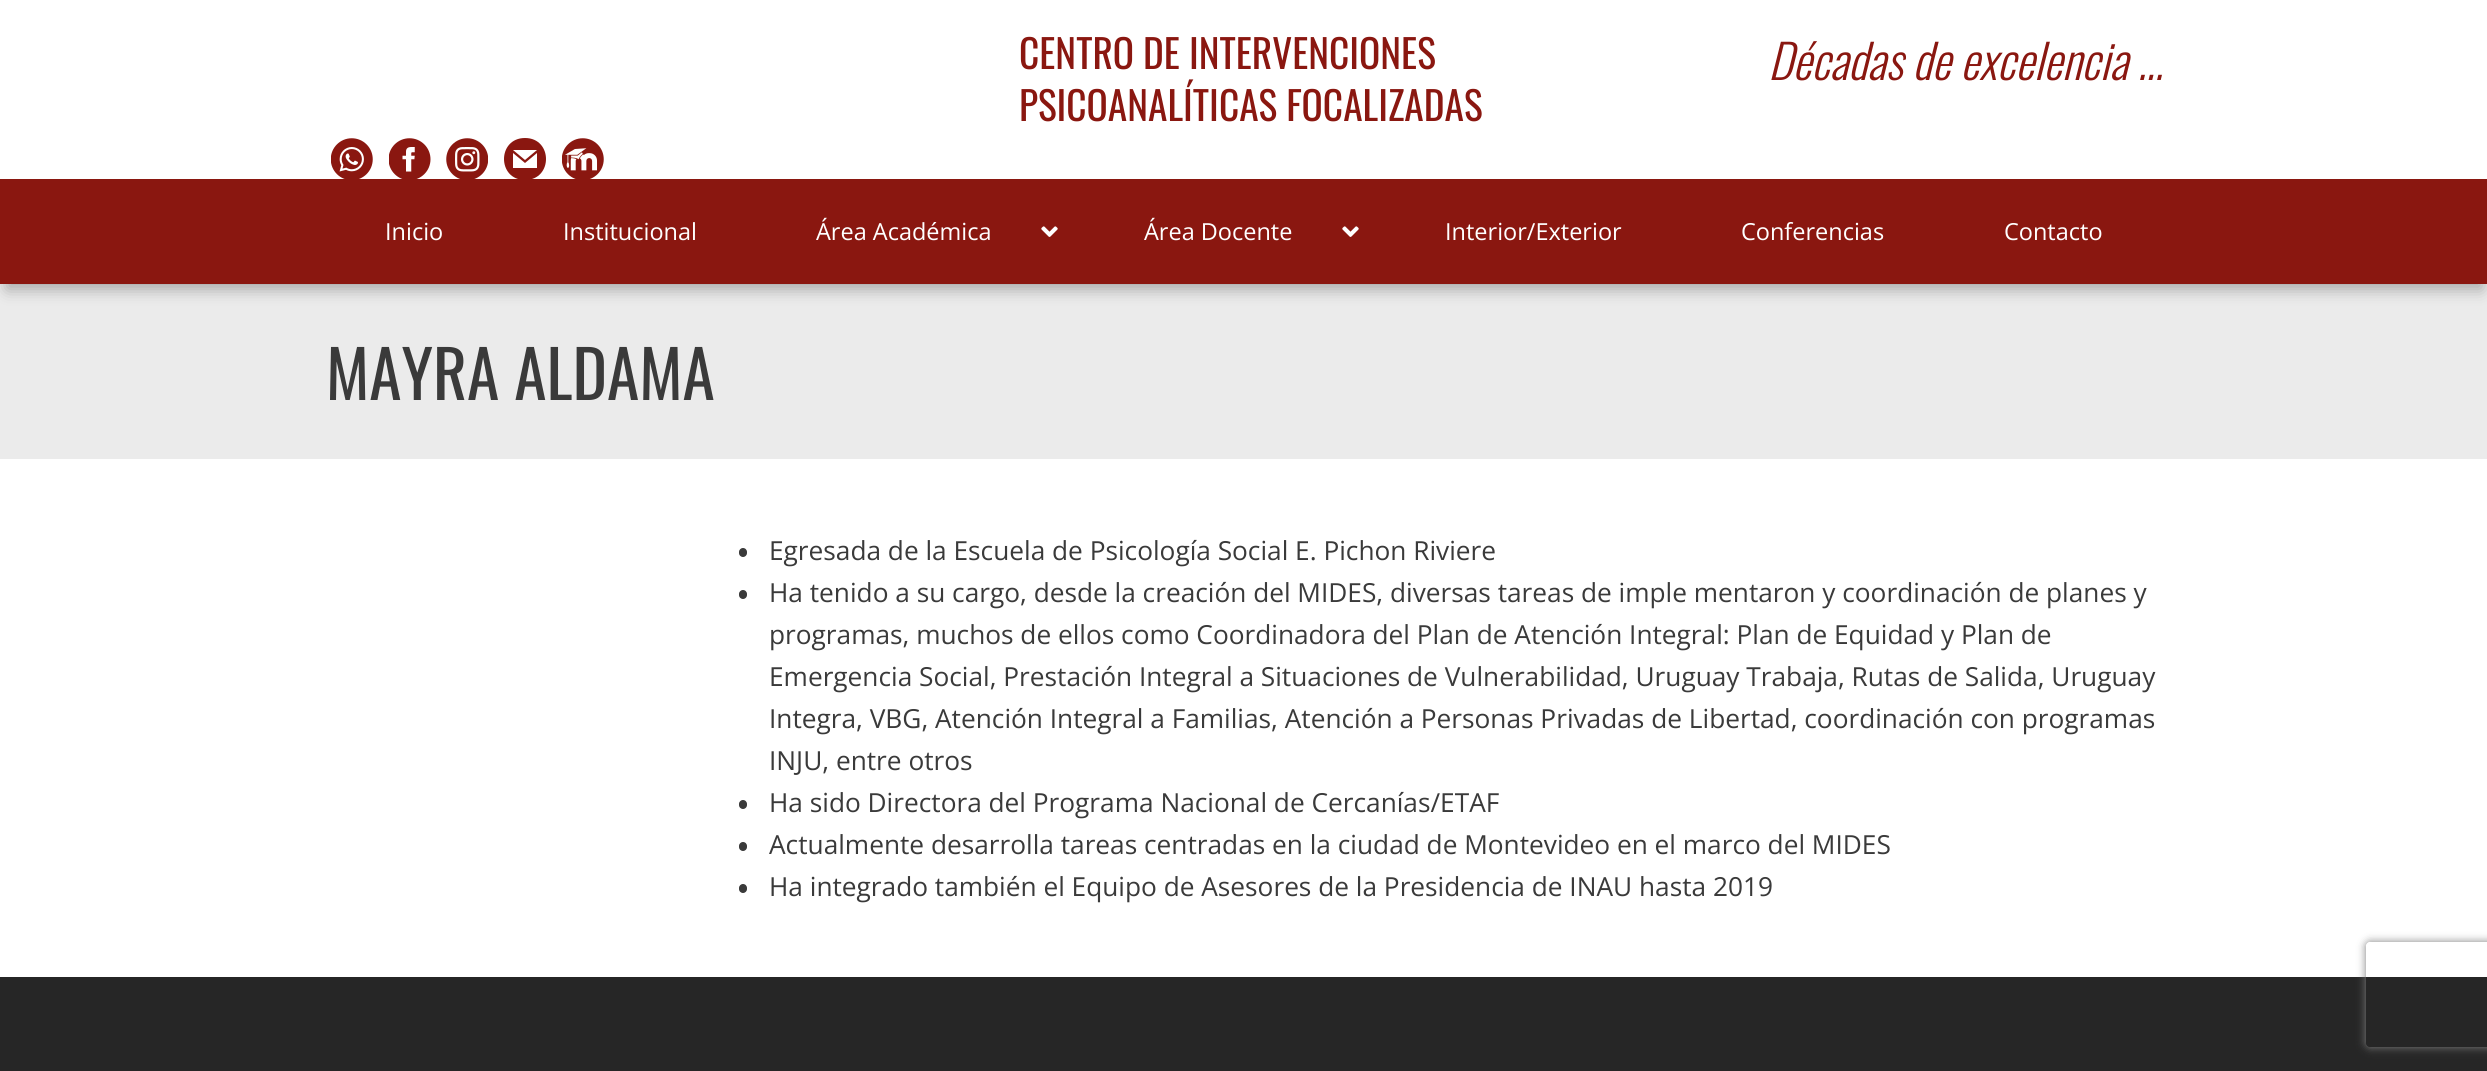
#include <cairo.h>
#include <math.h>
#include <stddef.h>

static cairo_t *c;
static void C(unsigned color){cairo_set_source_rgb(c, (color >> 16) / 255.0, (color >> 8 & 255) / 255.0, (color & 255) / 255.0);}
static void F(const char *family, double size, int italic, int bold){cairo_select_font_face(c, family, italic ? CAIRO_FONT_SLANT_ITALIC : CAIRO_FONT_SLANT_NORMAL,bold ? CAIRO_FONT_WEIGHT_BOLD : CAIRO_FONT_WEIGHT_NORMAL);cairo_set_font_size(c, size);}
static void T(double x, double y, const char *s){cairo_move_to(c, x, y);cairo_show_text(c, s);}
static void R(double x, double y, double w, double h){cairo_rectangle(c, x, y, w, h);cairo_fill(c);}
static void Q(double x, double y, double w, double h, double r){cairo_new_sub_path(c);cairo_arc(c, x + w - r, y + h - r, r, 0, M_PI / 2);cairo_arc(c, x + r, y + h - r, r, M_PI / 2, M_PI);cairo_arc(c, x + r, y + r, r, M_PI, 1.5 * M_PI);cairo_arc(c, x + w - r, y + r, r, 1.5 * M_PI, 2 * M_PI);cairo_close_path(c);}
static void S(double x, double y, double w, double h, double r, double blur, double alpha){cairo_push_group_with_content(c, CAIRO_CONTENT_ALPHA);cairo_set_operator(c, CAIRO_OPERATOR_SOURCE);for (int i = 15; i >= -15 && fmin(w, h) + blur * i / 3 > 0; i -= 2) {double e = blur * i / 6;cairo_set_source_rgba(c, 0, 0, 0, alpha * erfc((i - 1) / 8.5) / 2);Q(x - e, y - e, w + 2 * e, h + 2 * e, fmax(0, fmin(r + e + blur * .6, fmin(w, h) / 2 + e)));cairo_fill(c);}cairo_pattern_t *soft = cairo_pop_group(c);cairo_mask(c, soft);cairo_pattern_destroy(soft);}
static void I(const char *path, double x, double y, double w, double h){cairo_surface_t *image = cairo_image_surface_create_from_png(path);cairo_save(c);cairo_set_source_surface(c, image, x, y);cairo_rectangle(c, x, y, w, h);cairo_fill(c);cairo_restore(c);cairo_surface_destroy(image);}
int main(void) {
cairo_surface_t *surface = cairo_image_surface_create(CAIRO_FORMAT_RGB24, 2487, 1071);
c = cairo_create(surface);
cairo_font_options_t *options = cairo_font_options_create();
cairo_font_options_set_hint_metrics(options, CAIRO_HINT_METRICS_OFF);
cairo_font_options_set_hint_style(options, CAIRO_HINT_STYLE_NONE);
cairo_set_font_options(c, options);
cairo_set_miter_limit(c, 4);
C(0xffffff);
cairo_paint(c);
C(0xebebeb);
R(0,284,2487,175);
C(0x000000);
S(7,5,2475,284,0,8,.3);
C(0xffffff);
R(0,0,2487,179);
F("Oswald",39.4,0,0);
C(0x8a1710);
T(1019,69,"CENTRO DE INTERVENCIONES");
T(1019,121,"PSICOANALÍTICAS FOCALIZADAS");
F("Oswald Light",47.25,1,0);
T(1768,80,"Décadas de excelencia ...");
I("1.png",331,138,42,41);
I("2.png",389,138,42,41);
I("3.png",446,138,42,41);
R(0,179,2487,105);
cairo_new_path(c);
cairo_move_to(c,525,138);
cairo_curve_to(c,497,138,497,180,525,180);
cairo_curve_to(c,553,180,553,138,525,138);
cairo_close_path(c);
cairo_move_to(c,537,150);
cairo_line_to(c,525,160);
cairo_line_to(c,513,150);
cairo_close_path(c);
cairo_move_to(c,537,168);
cairo_line_to(c,513,168);
cairo_line_to(c,513,153);
cairo_line_to(c,525,163);
cairo_line_to(c,537,153);
cairo_close_path(c);
cairo_fill(c);
I("4.png",562,138,42,41);
F("Open Sans",23.5,0,0);
C(0xffffff);
T(385,240,"Inicio");
T(563,240,"Institucional");
T(816,240,"Área Académica");
I("5.png",1041,226,17,11);
T(1144,240,"Área Docente");
I("5.png",1342,226,17,11);
T(1445,240,"Interior/Exterior");
T(1741,240,"Conferencias");
T(2004,240,"Contacto");
F("Oswald",65.5,0,0);
C(0x3a3a3a);
T(326,400,"MAYRA ALDAMA");
Q(739,548,8,9,4);
cairo_fill(c);
F("Open Sans",26.25,0,0);
T(769,560,"Egresada de la Escuela de Psicología Social E. Pichon Riviere");
Q(739,590,8,9,4);
cairo_fill(c);
T(769,602,"Ha tenido a su cargo, desde la creación del MIDES, diversas tareas de imple mentaron y coordinación de planes y");
T(769,644,"programas, muchos de ellos como Coordinadora del Plan de Atención Integral: Plan de Equidad y Plan de");
T(769,686,"Emergencia Social, Prestación Integral a Situaciones de Vulnerabilidad, Uruguay Trabaja, Rutas de Salida, Uruguay");
T(769,728,"Integra, VBG, Atención Integral a Familias, Atención a Personas Privadas de Libertad, coordinación con programas");
T(769,770,"INJU, entre otros");
Q(739,800,8,9,4);
cairo_fill(c);
T(769,812,"Ha sido Directora del Programa Nacional de Cercanías/ETAF");
Q(739,842,8,9,4);
cairo_fill(c);
T(769,854,"Actualmente desarrolla tareas centradas en la ciudad de Montevideo en el marco del MIDES");
Q(739,884,8,9,4);
cairo_fill(c);
T(769,896,"Ha integrado también el Equipo de Asesores de la Presidencia de INAU hasta 2019");
C(0x262626);
R(0,977,2487,94);
cairo_save(c);
cairo_set_fill_rule(c,CAIRO_FILL_RULE_EVEN_ODD);
cairo_new_path(c);
cairo_move_to(c,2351,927);
cairo_line_to(c,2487,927);
cairo_line_to(c,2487,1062);
cairo_line_to(c,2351,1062);
cairo_close_path(c);
cairo_move_to(c,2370,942);
cairo_line_to(c,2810,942);
cairo_curve_to(c,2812,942,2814,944,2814,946);
cairo_line_to(c,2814,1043);
cairo_curve_to(c,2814,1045,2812,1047,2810,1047);
cairo_line_to(c,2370,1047);
cairo_curve_to(c,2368,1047,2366,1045,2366,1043);
cairo_line_to(c,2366,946);
cairo_curve_to(c,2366,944,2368,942,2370,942);
cairo_close_path(c);
cairo_clip(c);
C(0x808080);
S(2366,942,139,105,4,4.5,1);
cairo_restore(c);
cairo_surface_write_to_png(surface, "o.png");
cairo_font_options_destroy(options);
cairo_destroy(c);
cairo_surface_destroy(surface);
return 0;
}
